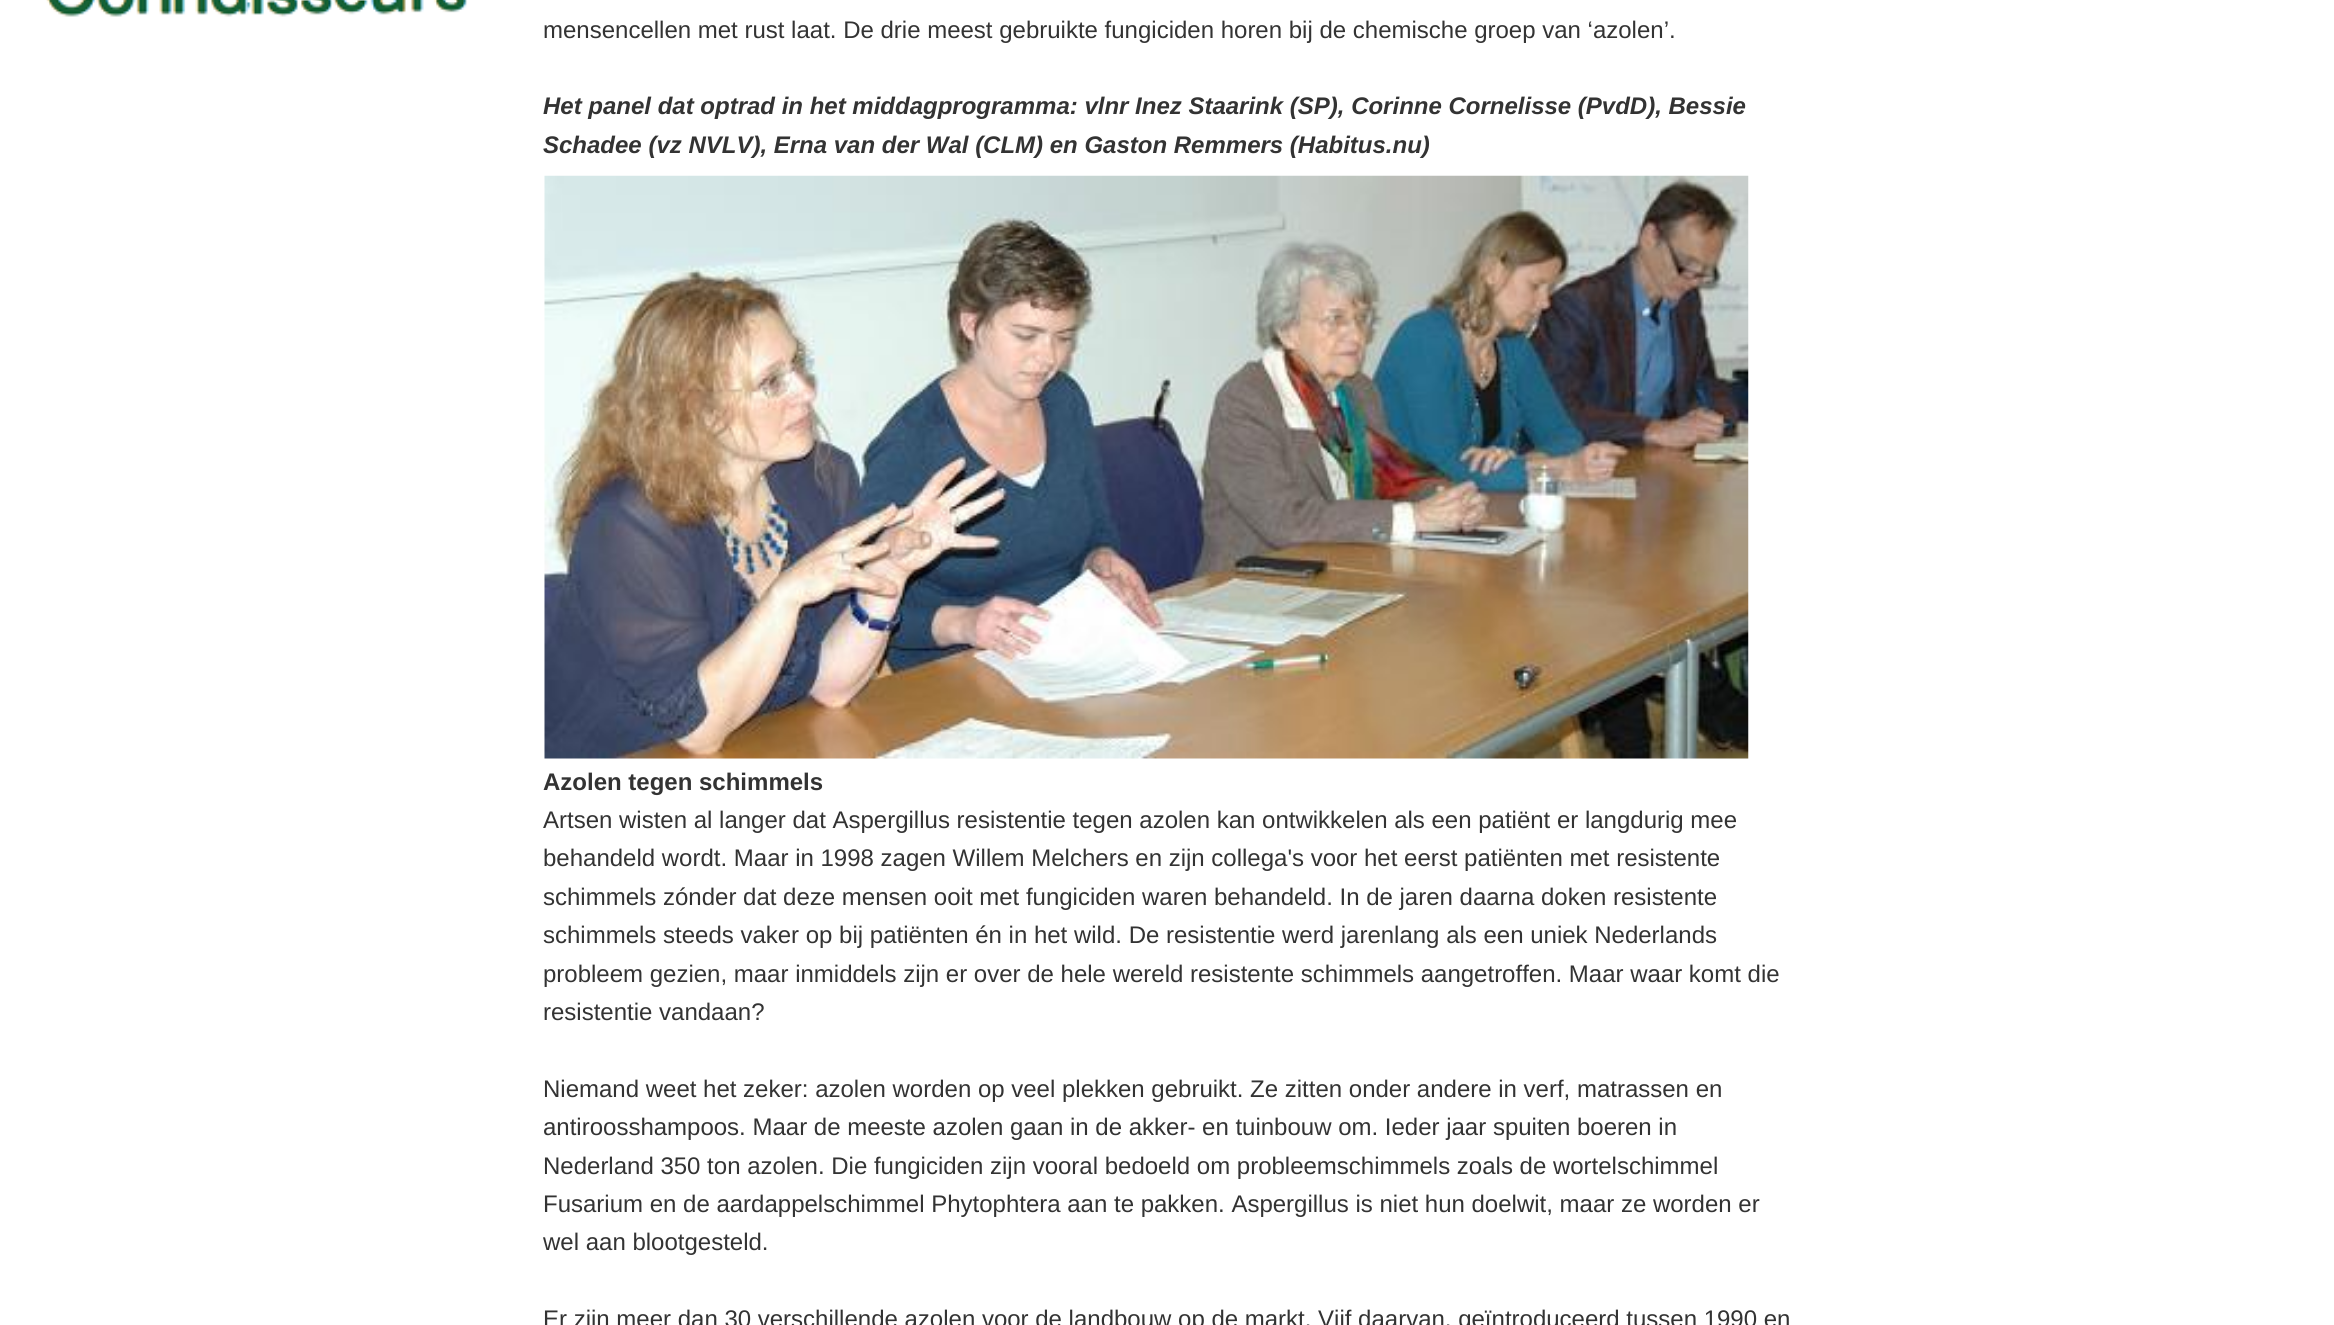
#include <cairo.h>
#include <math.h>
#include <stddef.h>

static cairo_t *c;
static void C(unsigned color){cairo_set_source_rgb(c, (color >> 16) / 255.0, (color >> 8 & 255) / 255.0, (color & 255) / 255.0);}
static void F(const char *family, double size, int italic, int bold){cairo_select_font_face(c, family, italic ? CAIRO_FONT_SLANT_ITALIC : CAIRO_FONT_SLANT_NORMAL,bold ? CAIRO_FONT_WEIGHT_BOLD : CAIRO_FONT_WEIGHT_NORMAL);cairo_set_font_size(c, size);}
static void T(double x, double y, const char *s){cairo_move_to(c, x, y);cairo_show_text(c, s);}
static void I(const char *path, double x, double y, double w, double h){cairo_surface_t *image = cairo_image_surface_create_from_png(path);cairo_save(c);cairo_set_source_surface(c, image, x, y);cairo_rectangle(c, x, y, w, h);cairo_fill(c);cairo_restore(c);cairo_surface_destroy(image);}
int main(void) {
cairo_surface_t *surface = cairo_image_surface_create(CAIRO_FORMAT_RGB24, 2334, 1325);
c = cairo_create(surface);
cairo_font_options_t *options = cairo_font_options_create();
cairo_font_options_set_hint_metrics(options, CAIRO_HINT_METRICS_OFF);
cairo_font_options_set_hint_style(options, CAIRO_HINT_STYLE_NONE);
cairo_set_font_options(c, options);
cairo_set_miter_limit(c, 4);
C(0xffffff);
cairo_paint(c);
I("1.png",46,0,422,17);
F("Liberation Sans",24,0,0);
C(0x333333);
T(543,38,"mensencellen met rust laat. De drie meest gebruikte fungiciden horen bij de chemische groep van ‘azolen’.");
F("Liberation Sans",24,1,1);
T(543,114,"Het panel dat optrad in het middagprogramma: vlnr Inez Staarink (SP), Corinne Cornelisse (PvdD), Bessie");
T(543,153,"Schadee (vz NVLV), Erna van der Wal (CLM) en Gaston Remmers (Habitus.nu)");
I("2.png",544,175,1205,584);
F("Liberation Sans",24,0,1);
T(543,790,"Azolen tegen schimmels");
F("Liberation Sans",24,0,0);
T(543,828,"Artsen wisten al langer dat Aspergillus resistentie tegen azolen kan ontwikkelen als een patiënt er langdurig mee");
T(543,866,"behandeld wordt. Maar in 1998 zagen Willem Melchers en zijn collega's voor het eerst patiënten met resistente");
T(543,905,"schimmels zónder dat deze mensen ooit met fungiciden waren behandeld. In de jaren daarna doken resistente");
T(543,943,"schimmels steeds vaker op bij patiënten én in het wild. De resistentie werd jarenlang als een uniek Nederlands");
T(543,982,"probleem gezien, maar inmiddels zijn er over de hele wereld resistente schimmels aangetroffen. Maar waar komt die");
T(543,1020,"resistentie vandaan?");
T(543,1097,"Niemand weet het zeker: azolen worden op veel plekken gebruikt. Ze zitten onder andere in verf, matrassen en");
T(543,1135,"antiroosshampoos. Maar de meeste azolen gaan in de akker- en tuinbouw om. Ieder jaar spuiten boeren in");
T(543,1174,"Nederland 350 ton azolen. Die fungiciden zijn vooral bedoeld om probleemschimmels zoals de wortelschimmel");
T(543,1212,"Fusarium en de aardappelschimmel Phytophtera aan te pakken. Aspergillus is niet hun doelwit, maar ze worden er");
T(543,1250,"wel aan blootgesteld.");
T(543,1327,"Er zijn meer dan 30 verschillende azolen voor de landbouw op de markt. Vijf daarvan, geïntroduceerd tussen 1990 en");
cairo_surface_write_to_png(surface, "o.png");
cairo_font_options_destroy(options);
cairo_destroy(c);
cairo_surface_destroy(surface);
return 0;
}
